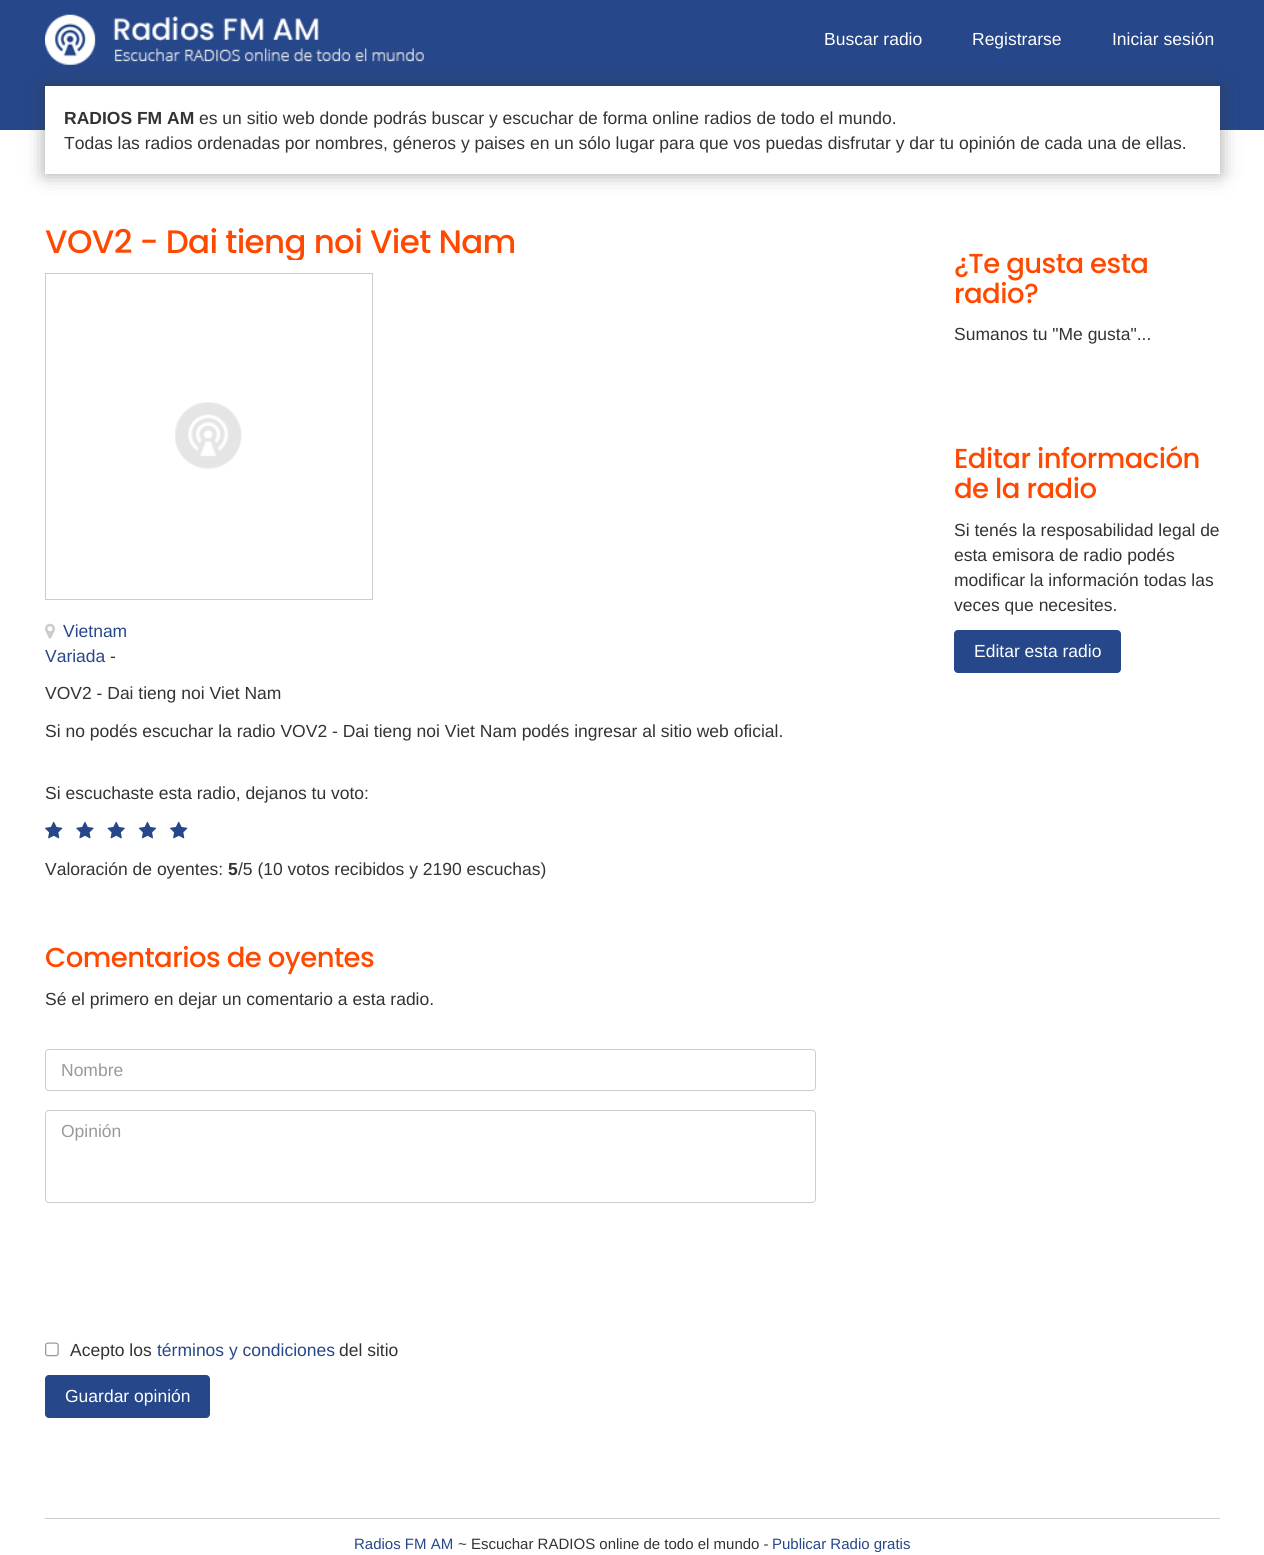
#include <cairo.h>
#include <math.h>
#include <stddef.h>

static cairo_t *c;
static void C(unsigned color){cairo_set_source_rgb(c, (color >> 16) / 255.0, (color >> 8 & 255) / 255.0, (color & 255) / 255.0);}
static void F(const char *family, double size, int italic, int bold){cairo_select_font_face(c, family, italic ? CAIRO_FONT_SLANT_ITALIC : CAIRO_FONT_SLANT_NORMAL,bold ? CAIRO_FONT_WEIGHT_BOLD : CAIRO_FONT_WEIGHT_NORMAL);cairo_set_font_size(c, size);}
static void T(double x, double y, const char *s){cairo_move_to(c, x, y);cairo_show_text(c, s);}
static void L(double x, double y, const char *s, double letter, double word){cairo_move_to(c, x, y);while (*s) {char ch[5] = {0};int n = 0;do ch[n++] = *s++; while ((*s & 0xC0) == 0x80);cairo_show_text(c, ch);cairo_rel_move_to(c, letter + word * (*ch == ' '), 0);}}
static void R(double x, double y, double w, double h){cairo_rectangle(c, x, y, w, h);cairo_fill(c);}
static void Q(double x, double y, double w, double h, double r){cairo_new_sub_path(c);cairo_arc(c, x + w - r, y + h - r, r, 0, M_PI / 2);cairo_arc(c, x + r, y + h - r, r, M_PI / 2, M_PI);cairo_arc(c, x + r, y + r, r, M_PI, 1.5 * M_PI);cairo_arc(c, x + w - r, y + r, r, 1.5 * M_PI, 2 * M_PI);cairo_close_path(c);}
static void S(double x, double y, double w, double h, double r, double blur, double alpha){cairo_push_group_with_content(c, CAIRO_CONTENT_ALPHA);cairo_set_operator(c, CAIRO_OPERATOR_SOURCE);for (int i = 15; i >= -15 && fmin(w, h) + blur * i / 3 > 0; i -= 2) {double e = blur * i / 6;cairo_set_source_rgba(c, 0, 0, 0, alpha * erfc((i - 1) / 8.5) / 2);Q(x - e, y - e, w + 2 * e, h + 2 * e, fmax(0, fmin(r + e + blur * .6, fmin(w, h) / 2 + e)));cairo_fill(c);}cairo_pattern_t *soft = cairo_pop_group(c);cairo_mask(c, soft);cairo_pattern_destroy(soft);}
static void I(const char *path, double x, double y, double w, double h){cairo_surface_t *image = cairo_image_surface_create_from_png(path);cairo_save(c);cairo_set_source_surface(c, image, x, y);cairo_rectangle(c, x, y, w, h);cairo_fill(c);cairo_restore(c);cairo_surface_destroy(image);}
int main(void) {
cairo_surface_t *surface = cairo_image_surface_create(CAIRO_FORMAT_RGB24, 1264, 1555);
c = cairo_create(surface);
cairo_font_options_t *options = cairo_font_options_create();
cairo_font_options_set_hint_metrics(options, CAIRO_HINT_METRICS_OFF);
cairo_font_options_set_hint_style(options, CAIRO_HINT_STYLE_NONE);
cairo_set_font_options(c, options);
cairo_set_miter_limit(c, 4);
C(0xffffff);
cairo_paint(c);
C(0x26478a);
R(0,0,1264,130);
C(0x323232);
S(45,86,1175,88,0,9.5,.45);
I("1.png",45,14,379,51);
F("Liberation Sans",17.5,0,0);
C(0xffffff);
T(824,45,"Buscar radio");
T(972,45,"Registrarse");
T(1112,45,"Iniciar sesión");
R(45,86,1175,88);
F("Liberation Sans",17.5,0,1);
C(0x333333);
T(64,124,"RADIOS FM AM");
F("Liberation Sans",17.5,0,0);
T(199,124,"es un sitio web donde podrás buscar y escuchar de forma online radios de todo el mundo.");
T(64,149,"Todas las radios ordenadas por nombres, géneros y paises en un sólo lugar para que vos puedas disfrutar y dar tu opinión de cada una de ellas.");
cairo_save(c);
cairo_rectangle(c,45,224,771,36);
cairo_clip(c);
F("Poppins Medium",32.5,0,0);
C(0xff4800);
L(45,253,"VOV2 - Dai tieng noi Viet Nam",-.65,0);
cairo_restore(c);
cairo_rectangle(c,45.5,273.5,327,326);
C(0xcccccc);
cairo_set_line_width(c,1);
cairo_stroke(c);
I("2.png",175,402,67,67);
I("3.png",45,623,10,16);
C(0x26478a);
T(63,637,"Vietnam");
T(45,662,"Variada");
C(0x333333);
T(110,662,"-");
T(45,699,"VOV2 - Dai tieng noi Viet Nam");
T(45,737,"Si no podés escuchar la radio VOV2 - Dai tieng noi Viet Nam podés ingresar al sitio web oficial.");
T(45,799,"Si escuchaste esta radio, dejanos tu voto:");
I("4.png",45,821,18,18);
I("5.png",76,821,18,18);
I("6.png",107,821,18,18);
I("7.png",138,821,19,18);
I("4.png",170,821,18,18);
T(45,875,"Valoración de oyentes:");
F("Liberation Sans",17.5,0,1);
T(228,875,"5");
F("Liberation Sans",17.5,0,0);
T(238,875,"/5 (10 votos recibidos y 2190 escuchas)");
F("Poppins Medium",27.5,0,0);
C(0xff4800);
L(45,967,"Comentarios de oyentes",-.55,0);
F("Liberation Sans",17.5,0,0);
C(0x333333);
T(45,1005,"Sé el primero en dejar un comentario a esta radio.");
Q(45.5,1049.5,770,41,3.5);
C(0xcccccc);
cairo_stroke(c);
C(0x999999);
T(61,1076,"Nombre");
Q(45.5,1110.5,770,92,3.5);
C(0xcccccc);
cairo_stroke(c);
C(0x999999);
T(61,1137,"Opinión");
I("8.png",45,1342,14,15);
C(0x333333);
T(70,1356,"Acepto los");
C(0x26478a);
T(157,1356,"términos y condiciones");
C(0x333333);
T(339,1356,"del sitio");
C(0x26478a);
Q(45.5,1375.5,164,42,3.5);
cairo_fill_preserve(c);
cairo_stroke(c);
C(0xffffff);
T(65,1402,"Guardar opinión");
F("Poppins Medium",27.5,0,0);
C(0xff4800);
L(954,273,"¿Te gusta esta",-.55,0);
L(954,303,"radio?",-.55,0);
F("Liberation Sans",17.5,0,0);
C(0x333333);
T(954,340,"Sumanos tu \"Me gusta\"...");
F("Poppins Medium",27.5,0,0);
C(0xff4800);
L(954,468,"Editar información",-.55,0);
L(954,498,"de la radio",-.55,0);
F("Liberation Sans",17.5,0,0);
C(0x333333);
T(954,536,"Si tenés la resposabilidad legal de");
T(954,561,"esta emisora de radio podés");
T(954,586,"modificar la información todas las");
T(954,611,"veces que necesites.");
C(0x26478a);
Q(954.5,630.5,166,42,3.5);
cairo_fill_preserve(c);
cairo_stroke(c);
C(0xffffff);
T(974,657,"Editar esta radio");
C(0xcccccc);
R(45,1518,1175,1);
F("Liberation Sans",15,0,0);
C(0x26478a);
T(354,1549,"Radios FM AM");
C(0x333333);
T(458,1549,"~ Escuchar RADIOS online de todo el mundo -");
C(0x26478a);
T(772,1549,"Publicar Radio gratis");
cairo_surface_write_to_png(surface, "o.png");
cairo_font_options_destroy(options);
cairo_destroy(c);
cairo_surface_destroy(surface);
return 0;
}
